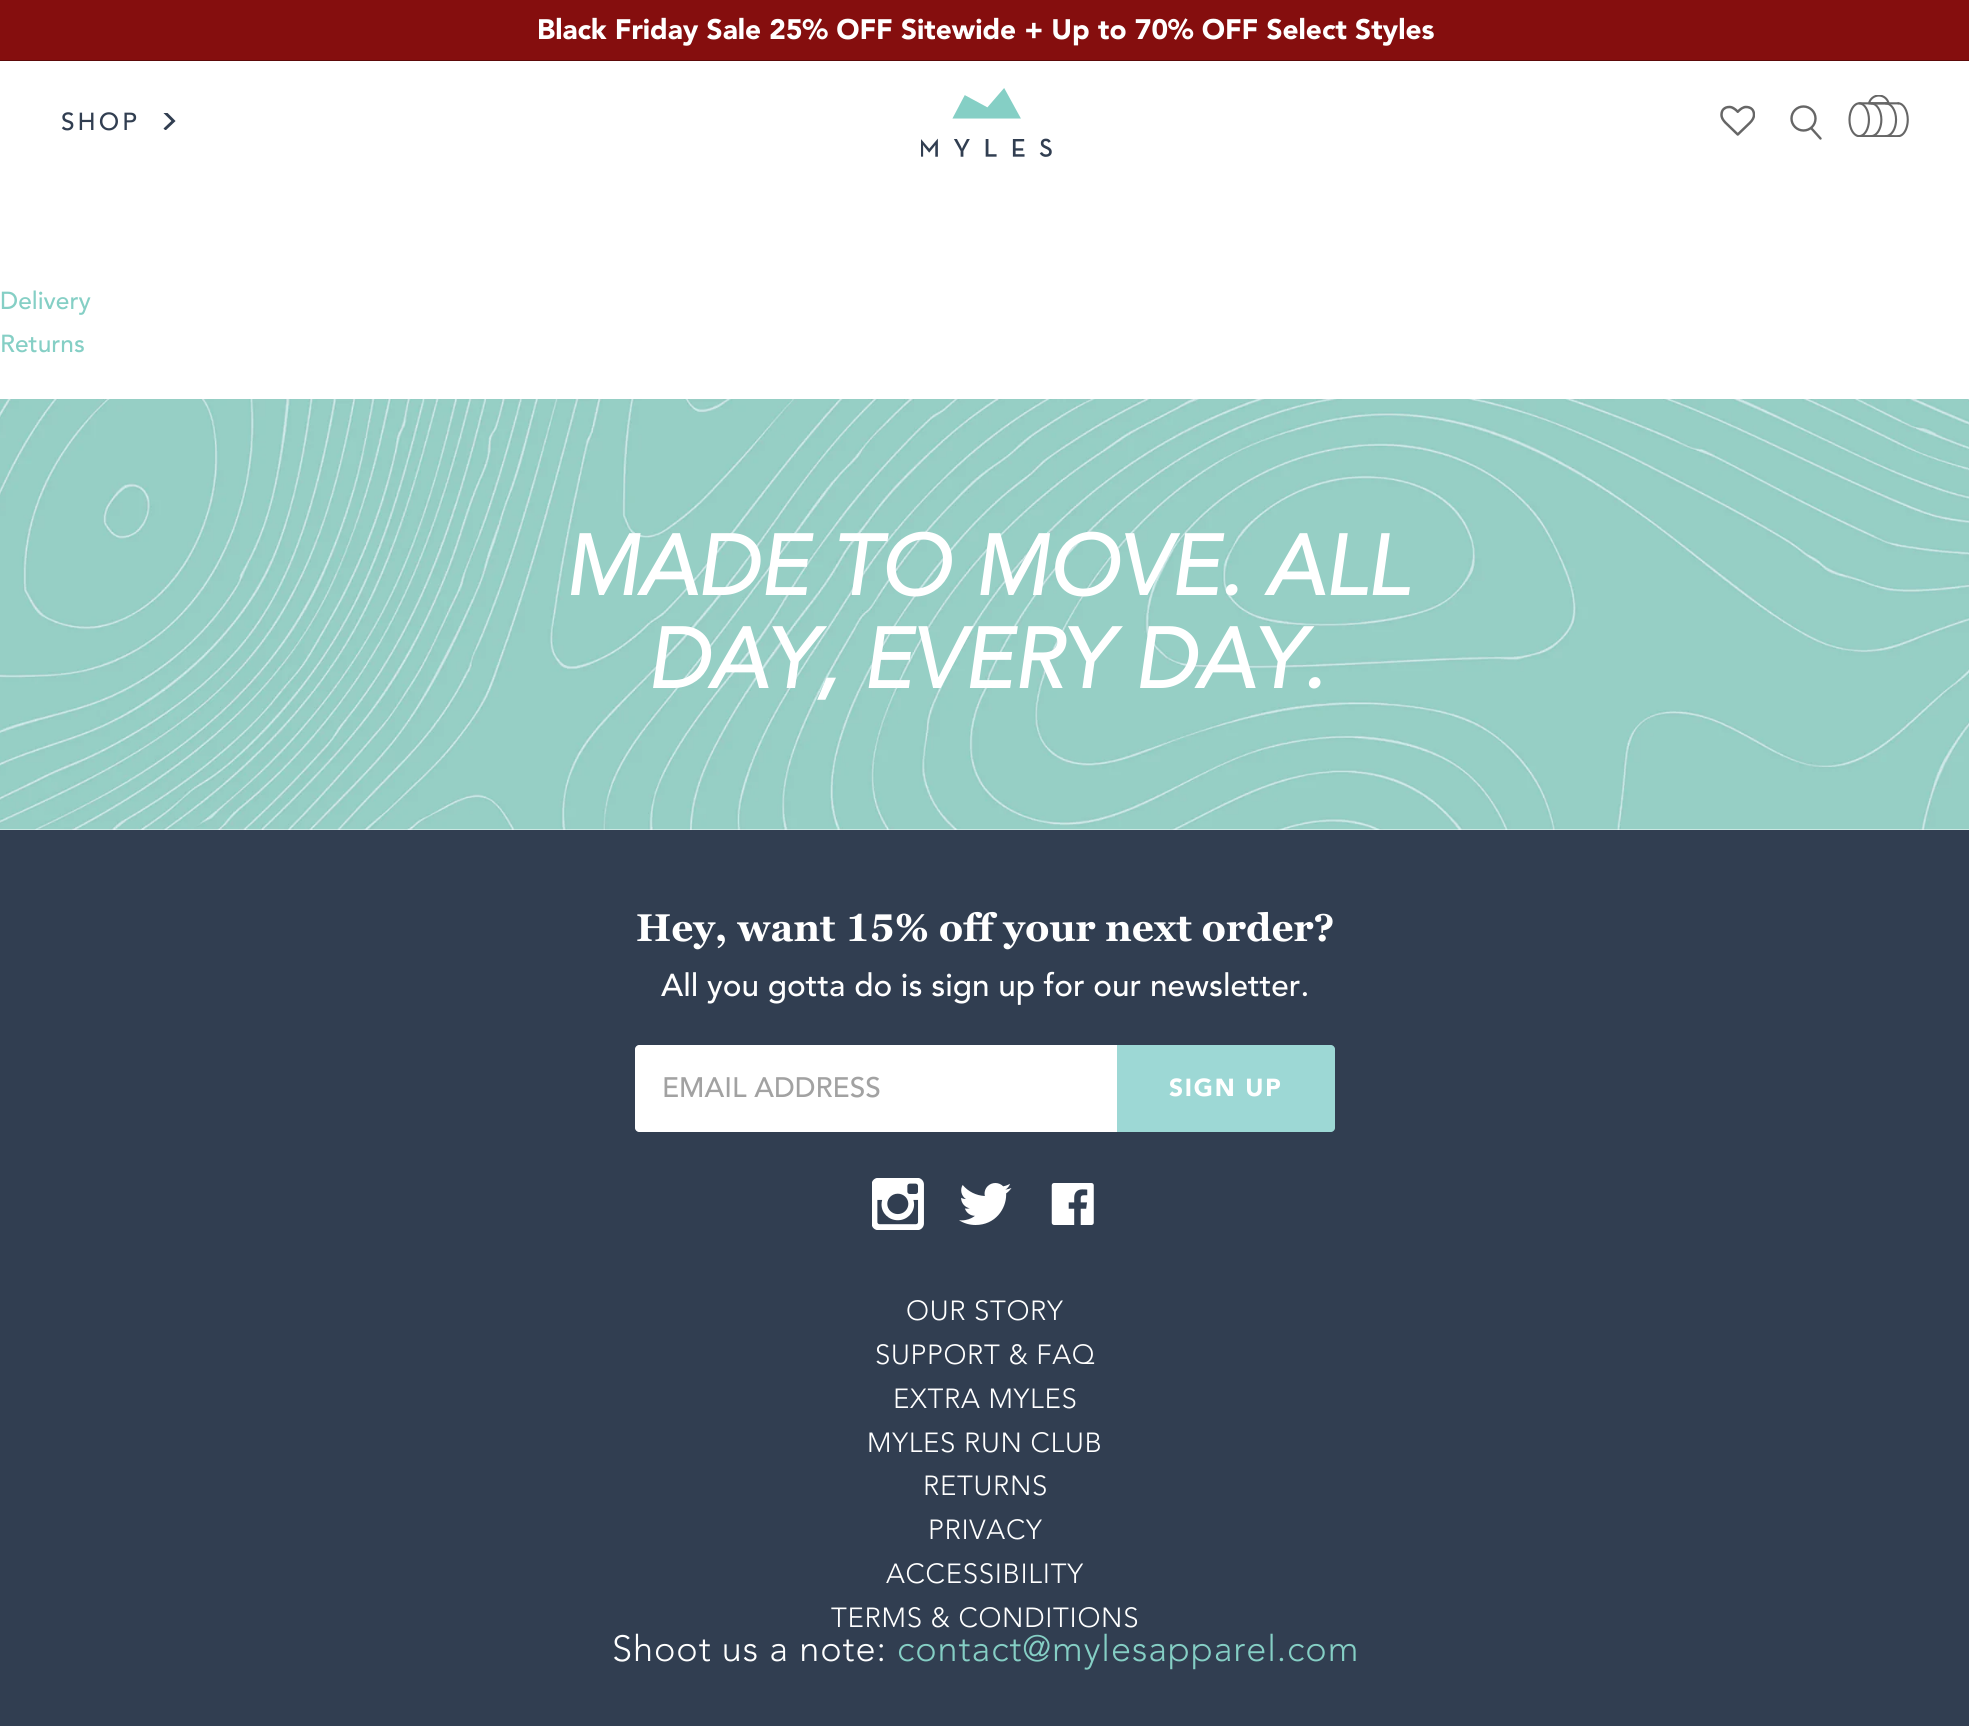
#include <cairo.h>
#include <math.h>
#include <stddef.h>

static cairo_t *c;
static void C(unsigned color){cairo_set_source_rgb(c, (color >> 16) / 255.0, (color >> 8 & 255) / 255.0, (color & 255) / 255.0);}
static void F(const char *family, double size, int italic, int bold){cairo_select_font_face(c, family, italic ? CAIRO_FONT_SLANT_ITALIC : CAIRO_FONT_SLANT_NORMAL,bold ? CAIRO_FONT_WEIGHT_BOLD : CAIRO_FONT_WEIGHT_NORMAL);cairo_set_font_size(c, size);}
static void T(double x, double y, const char *s){cairo_move_to(c, x, y);cairo_show_text(c, s);}
static void L(double x, double y, const char *s, double letter, double word){cairo_move_to(c, x, y);while (*s) {char ch[5] = {0};int n = 0;do ch[n++] = *s++; while ((*s & 0xC0) == 0x80);cairo_show_text(c, ch);cairo_rel_move_to(c, letter + word * (*ch == ' '), 0);}}
static void R(double x, double y, double w, double h){cairo_rectangle(c, x, y, w, h);cairo_fill(c);}
static void I(const char *path, double x, double y, double w, double h){cairo_surface_t *image = cairo_image_surface_create_from_png(path);cairo_save(c);cairo_set_source_surface(c, image, x, y);cairo_rectangle(c, x, y, w, h);cairo_fill(c);cairo_restore(c);cairo_surface_destroy(image);}
int main(void) {
cairo_surface_t *surface = cairo_image_surface_create(CAIRO_FORMAT_RGB24, 1969, 1726);
c = cairo_create(surface);
cairo_font_options_t *options = cairo_font_options_create();
cairo_font_options_set_hint_metrics(options, CAIRO_HINT_METRICS_OFF);
cairo_font_options_set_hint_style(options, CAIRO_HINT_STYLE_NONE);
cairo_set_font_options(c, options);
cairo_set_miter_limit(c, 4);
C(0xffffff);
cairo_paint(c);
C(0x850e0e);
R(0,0,1969,60);
cairo_save(c);
cairo_rectangle(c,0,0,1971,61);
cairo_clip(c);
C(0x5d0a0a);
cairo_set_fill_rule(c,CAIRO_FILL_RULE_EVEN_ODD);
cairo_new_path(c);
cairo_move_to(c,-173,-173);
cairo_line_to(c,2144,-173);
cairo_line_to(c,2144,234);
cairo_line_to(c,-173,234);
cairo_close_path(c);
cairo_move_to(c,-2,-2);
cairo_line_to(c,1969,-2);
cairo_line_to(c,1969,60);
cairo_line_to(c,-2,60);
cairo_close_path(c);
cairo_fill(c);
cairo_restore(c);
F("Avenir Black",28,0,0);
C(0xffffff);
T(537,39,"Black Friday Sale 25% OFF Sitewide + Up to 70% OFF Select Styles");
F("Avenir Medium",24.5,0,0);
C(0x313e51);
L(61,130,"SHOP",3,0);
cairo_save(c);
cairo_new_path(c);
cairo_move_to(c,159,130.5);
cairo_line_to(c,159,113);
cairo_line_to(c,176.5,113);
cairo_line_to(c,176.5,130.5);
cairo_close_path(c);
cairo_clip(c);
cairo_new_path(c);
cairo_move_to(c,160,130);
cairo_line_to(c,160,112.5);
cairo_line_to(c,177.5,112.5);
cairo_line_to(c,177.5,130);
cairo_close_path(c);
cairo_clip(c);
cairo_new_path(c);
cairo_move_to(c,164.5,129.5);
cairo_line_to(c,173.5,121);
cairo_line_to(c,164.5,112);
cairo_set_line_width(c,2.9);
cairo_stroke(c);
cairo_restore(c);
I("1.png",921,88,131,69);
I("2.png",1720,105,35,31);
cairo_arc(c,1803.5,118.5,12,0,2 * M_PI);
C(0x666666);
cairo_set_line_width(c,2.4);
cairo_stroke(c);
cairo_new_path(c);
cairo_move_to(c,1811.5,128.5);
cairo_line_to(c,1820.5,138.5);
cairo_set_line_cap(c,CAIRO_LINE_CAP_ROUND);
cairo_stroke(c);
I("3.png",1848,95,61,42);
C(0x85cfc5);
T(0,309,"Delivery");
T(0,352,"Returns");
I("4.png",0,399,1969,431);
F("Avenir",84,1,1);
C(0xffffff);
T(563,595,"MADE TO MOVE. ALL");
T(646,688,"DAY, EVERY DAY.");
C(0x313e51);
R(0,830,1969,896);
F("Georgia",38.5,0,1);
C(0xffffff);
T(636,941,"Hey, want 15% off your next order?");
F("Avenir Medium",31.5,0,0);
T(661,996,"All you gotta do is sign up for our newsletter.");
cairo_new_path(c);
cairo_move_to(c,639,1045);
cairo_line_to(c,1117,1045);
cairo_line_to(c,1117,1132);
cairo_line_to(c,639,1132);
cairo_curve_to(c,637,1132,635,1130,635,1128);
cairo_line_to(c,635,1049);
cairo_curve_to(c,635,1047,637,1045,639,1045);
cairo_close_path(c);
cairo_fill(c);
F("Avenir Medium",28,0,0);
C(0xa2a2a2);
T(662,1097,"EMAIL ADDRESS");
C(0x9dd8d5);
cairo_new_path(c);
cairo_move_to(c,1117,1045);
cairo_line_to(c,1331,1045);
cairo_curve_to(c,1333,1045,1335,1047,1335,1049);
cairo_line_to(c,1335,1128);
cairo_curve_to(c,1335,1130,1333,1132,1331,1132);
cairo_line_to(c,1117,1132);
cairo_close_path(c);
cairo_fill(c);
F("Avenir Black",24.5,0,0);
C(0xffffff);
L(1169,1096,"SIGN UP",1.75,0);
F("Avenir Light",27.5,0,0);
L(906,1320,"OUR STORY",.7,0);
L(875,1364,"SUPPORT & FAQ",.7,0);
L(893,1408,"EXTRA MYLES",.7,0);
L(867,1452,"MYLES RUN CLUB",.7,0);
L(923,1495,"RETURNS",.7,0);
L(928,1539,"PRIVACY",.7,0);
L(886,1583,"ACCESSIBILITY",.7,0);
L(831,1627,"TERMS & CONDITIONS",.7,0);
I("5.png",872,1178,52,52);
I("6.png",959,1183,53,42);
I("7.png",1051,1183,43,42);
F("Avenir Light",36.1,0,0);
L(612,1661,"Shoot us a note:",.9,0);
C(0x85cfc5);
L(897,1661,"contact@mylesapparel.com",.9,0);
cairo_surface_write_to_png(surface, "o.png");
cairo_font_options_destroy(options);
cairo_destroy(c);
cairo_surface_destroy(surface);
return 0;
}
